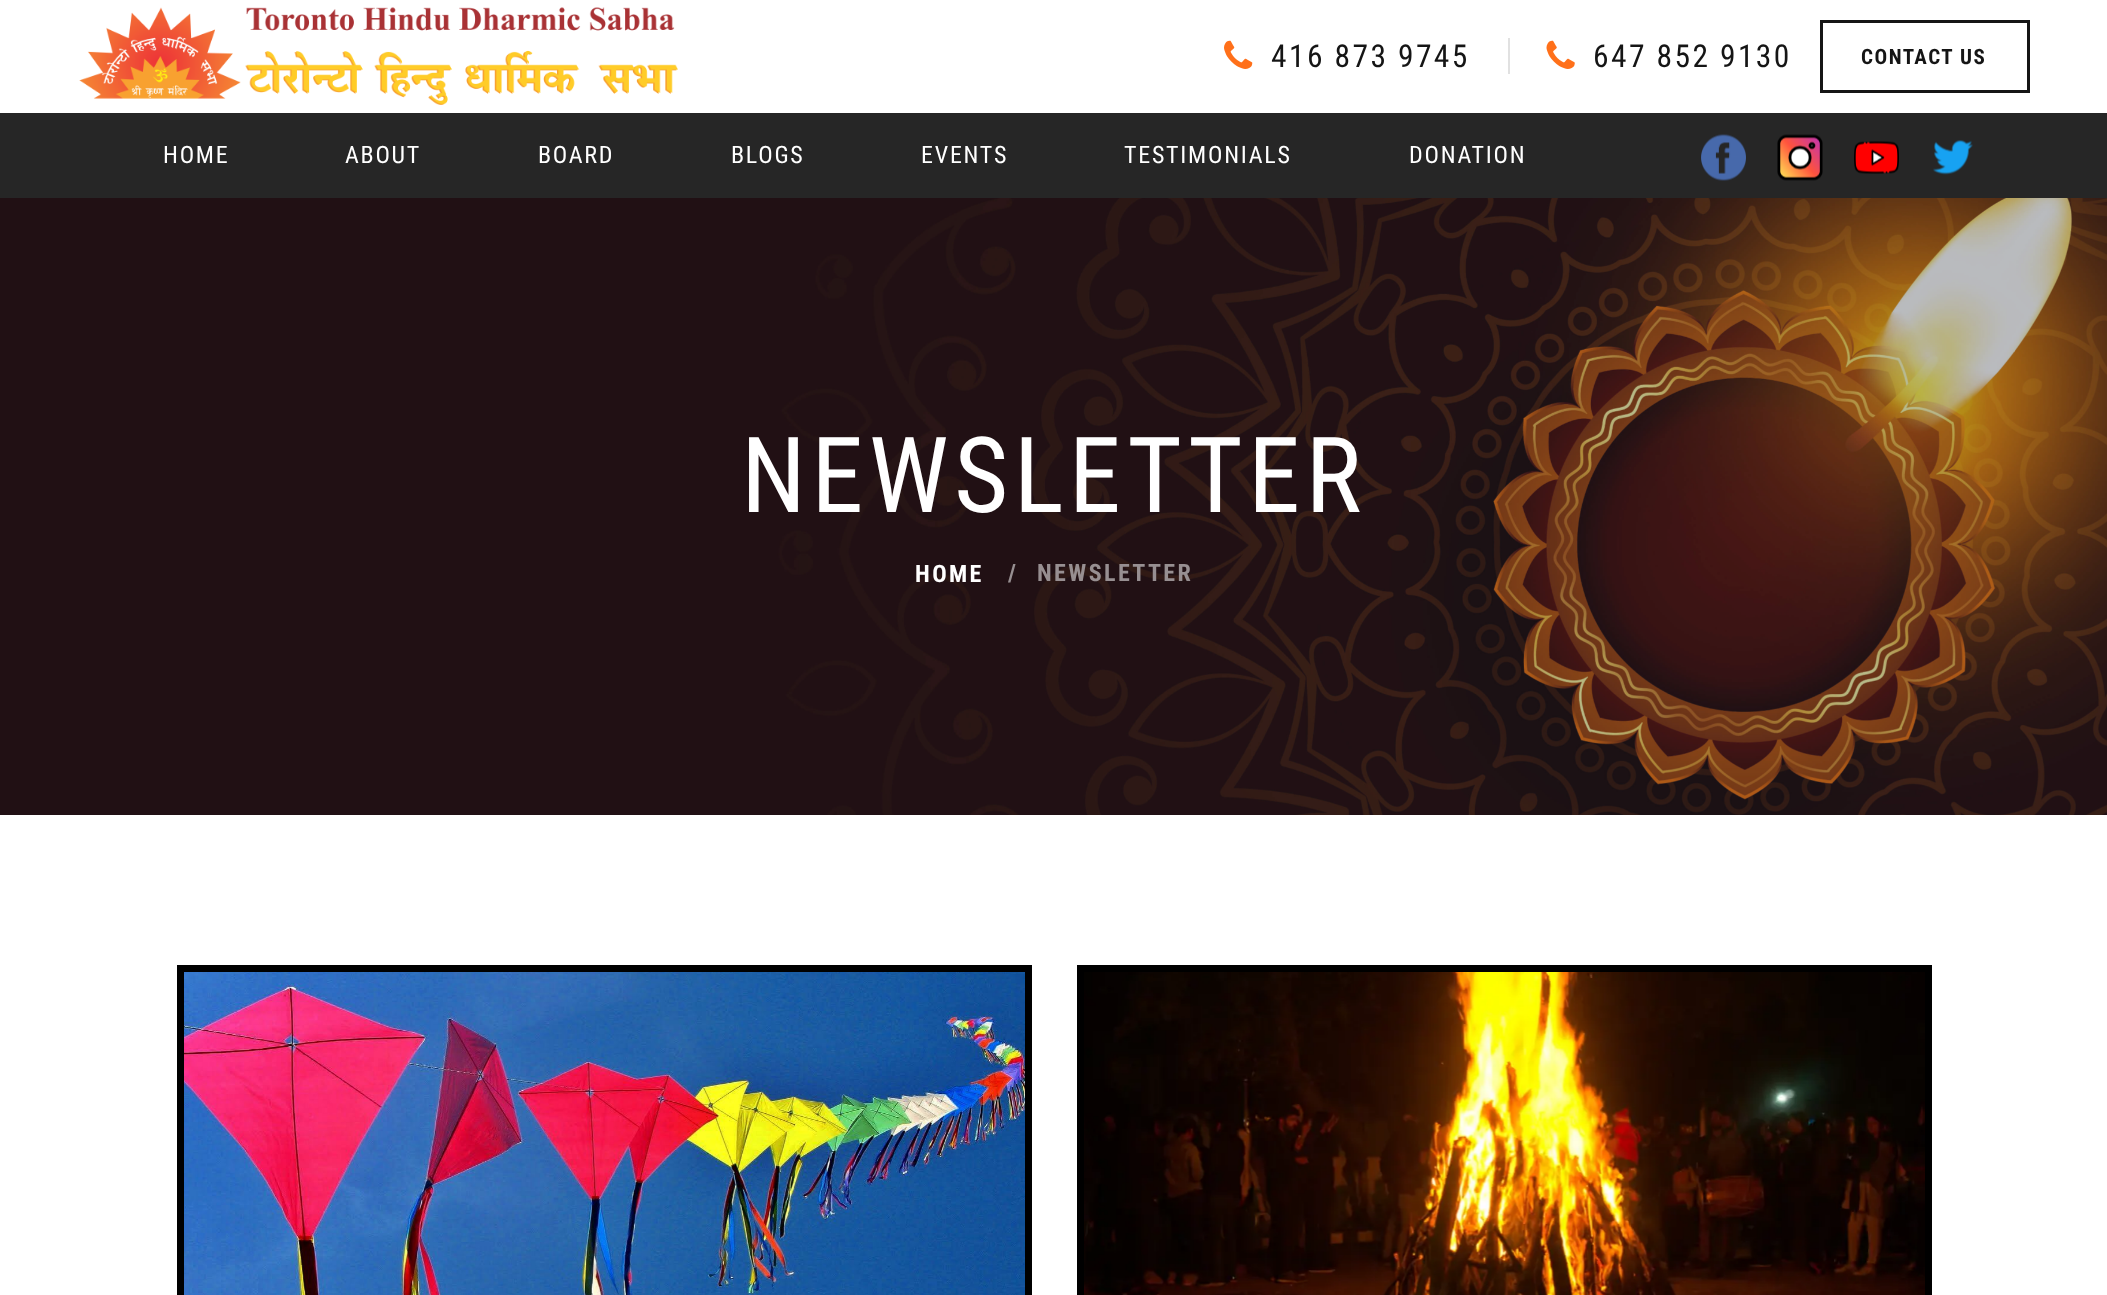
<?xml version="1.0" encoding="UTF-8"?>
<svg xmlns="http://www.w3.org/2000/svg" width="2107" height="1295">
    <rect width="100%" height="100%" fill="#FFFFFF"/>
    <image x="79" y="7" width="599" height="98" href="img_01.png"/>
    <image x="1224" y="40" width="29" height="29" href="img_02.png"/>
    <text x="1271" y="67" font-family="Roboto Condensed" font-size="31.5" letter-spacing="2.4" fill="#151515">416 873 9745</text>
    <rect x="1508" y="38" width="2" height="36" fill="#E1E1E1"/>
    <image x="1546" y="40" width="29" height="29" href="img_03.png"/>
    <text x="1593" y="67" font-family="Roboto Condensed" font-size="31.5" letter-spacing="2.4" fill="#151515">647 852 9130</text>
    <rect x="1821.5" y="21.5" width="207" height="70" fill="none" stroke="#151515" stroke-width="3"/>
    <text x="1861" y="64" font-family="Roboto Condensed" font-size="21" font-weight="700" letter-spacing="1.5" fill="#151515">CONTACT US</text>
    <rect x="0" y="113" width="2107" height="85" fill="#262626"/>
    <text x="163" y="163" font-family="Roboto Condensed" font-size="24" letter-spacing="1.75" fill="#FFFFFF">HOME</text>
    <text x="345" y="163" font-family="Roboto Condensed" font-size="24" letter-spacing="1.75" fill="#FFFFFF">ABOUT</text>
    <text x="538" y="163" font-family="Roboto Condensed" font-size="24" letter-spacing="1.75" fill="#FFFFFF">BOARD</text>
    <text x="731" y="163" font-family="Roboto Condensed" font-size="24" letter-spacing="1.75" fill="#FFFFFF">BLOGS</text>
    <text x="921" y="163" font-family="Roboto Condensed" font-size="24" letter-spacing="1.75" fill="#FFFFFF">EVENTS</text>
    <text x="1124" y="163" font-family="Roboto Condensed" font-size="24" letter-spacing="1.75" fill="#FFFFFF">TESTIMONIALS</text>
    <text x="1409" y="163" font-family="Roboto Condensed" font-size="24" letter-spacing="1.75" fill="#FFFFFF">DONATION</text>
    <image x="1701" y="134" width="45" height="47" href="img_04.png"/>
    <image x="1777" y="134" width="46" height="47" href="img_05.png"/>
    <image x="1854" y="141" width="45" height="33" href="img_06.png"/>
    <image x="1933" y="140" width="40" height="35" href="img_07.png"/>
    <image x="0" y="198" width="2107" height="617" href="img_08.png"/>
    <text x="741" y="512" font-family="Roboto Condensed" font-size="105" letter-spacing="5.25" fill="#FFFFFF">NEWSLETTER</text>
    <text x="915" y="582" font-family="Roboto Condensed" font-size="24" font-weight="700" letter-spacing="2.4" fill="#FFFFFF">HOME</text>
    <text x="1008" y="581" font-family="Roboto Condensed" font-size="24" font-weight="700" letter-spacing="2.4" fill="#978F91">/</text>
    <text x="1037" y="581" font-family="Roboto Condensed" font-size="24" font-weight="700" letter-spacing="2.4" fill="#978F91">NEWSLETTER</text>
    <rect x="181" y="969" width="847" height="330" fill="none" stroke="#000000" stroke-width="8"/>
    <image x="184" y="972" width="841" height="323" href="img_09.png"/>
    <rect x="1081" y="969" width="847" height="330" fill="none" stroke="#000000" stroke-width="8"/>
    <image x="1084" y="972" width="841" height="323" href="img_10.png"/>
</svg>
